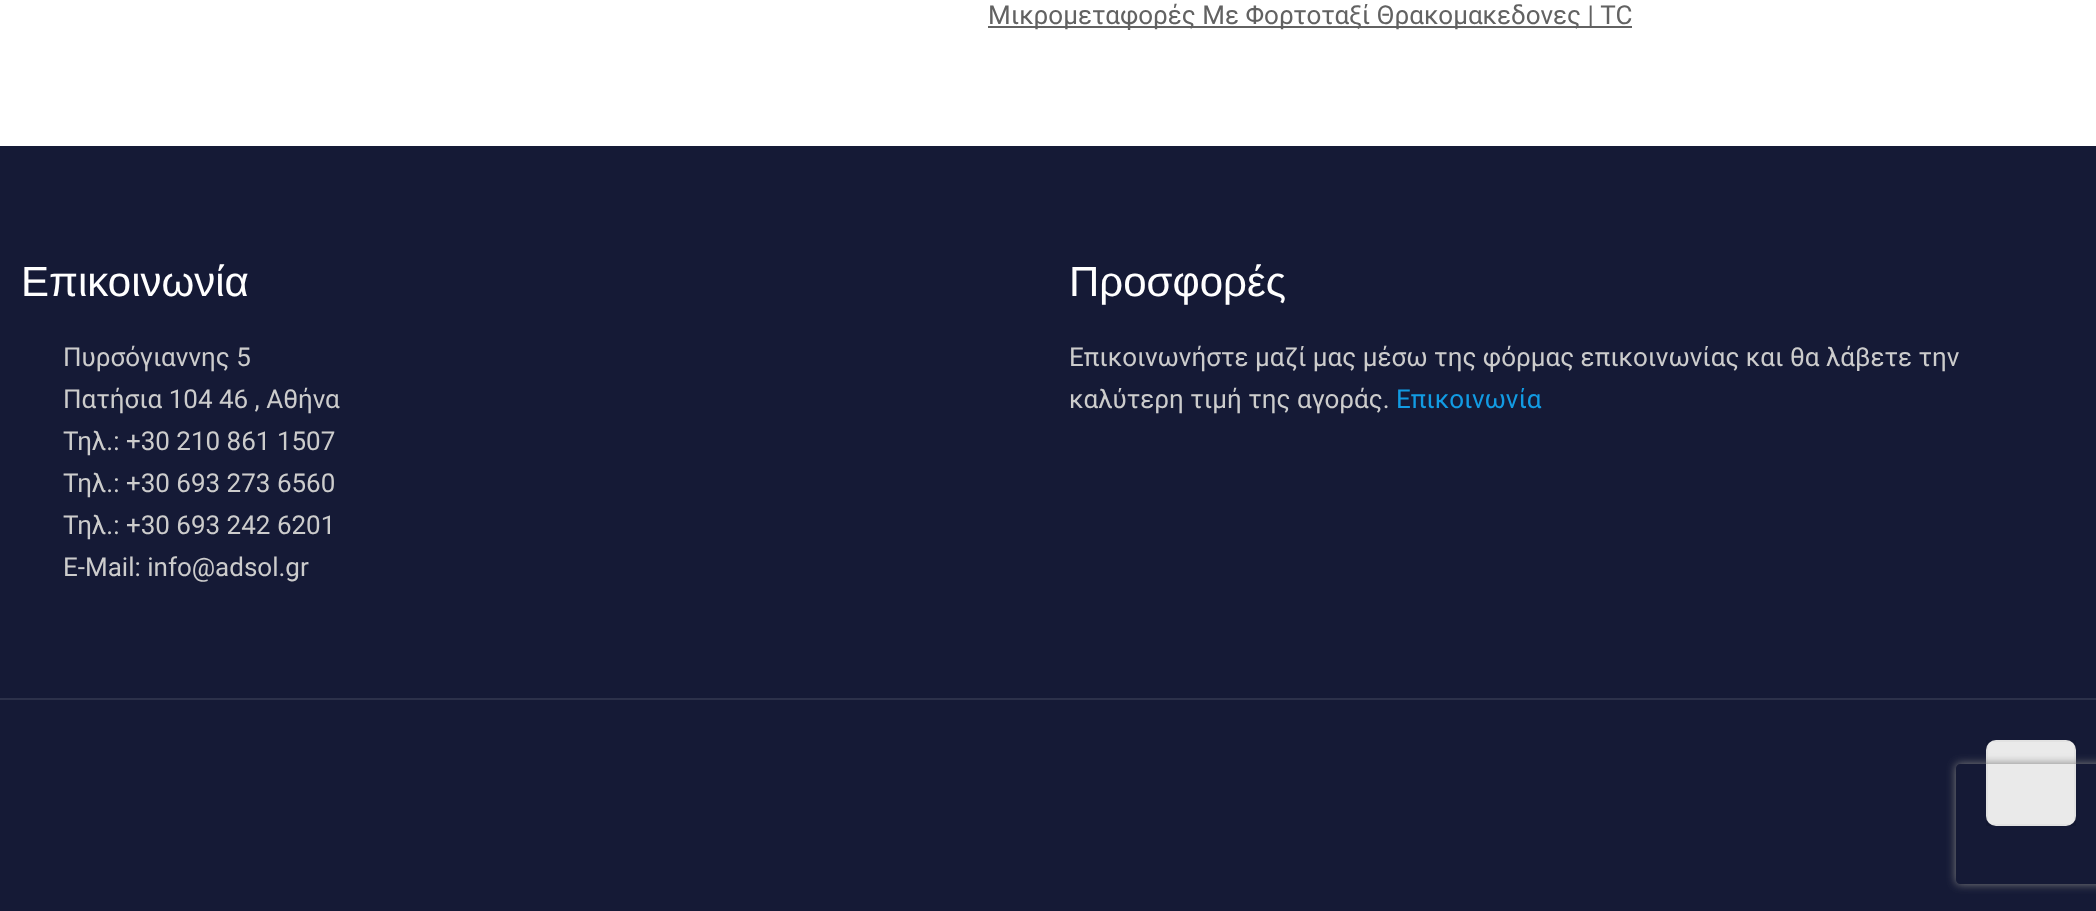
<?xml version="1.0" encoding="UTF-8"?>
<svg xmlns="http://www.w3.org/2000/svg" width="2096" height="911">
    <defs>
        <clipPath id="clip1"><path d="M 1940 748 H 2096 V 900 H 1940 Z M 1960 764 H 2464 C 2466 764 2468 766 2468 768 V 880 C 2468 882 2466 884 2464 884 H 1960 C 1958 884 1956 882 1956 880 V 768 C 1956 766 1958 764 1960 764 Z" clip-rule="evenodd"/></clipPath>
        <filter id="blur1" x="-50%" y="-200%" width="200%" height="500%"><feGaussianBlur stdDeviation="5"/></filter>
    </defs>
    <rect width="100%" height="100%" fill="#FFFFFF"/>
    <rect x="988" y="26" width="644" height="2" fill="#626262"/>
    <text x="988" y="24" font-family="Roboto" font-size="26" fill="#626262">Μικρομεταφορές Με Φορτοταξί Θρακομακεδονες | TC</text>
    <rect x="0" y="146" width="2096" height="765" fill="#151A36"/>
    <text x="21" y="296" font-family="Liberation Sans" font-size="42" fill="#FFFFFF">Επικοινωνία</text>
    <text font-family="Roboto" font-size="26" fill="#CCCCCC">
        <tspan x="63" y="366">Πυρσόγιαννης 5</tspan>
        <tspan x="63" y="408">Πατήσια 104 46 , Αθήνα</tspan>
        <tspan x="63" y="450">Τηλ.: +30 210 861 1507</tspan>
        <tspan x="63" y="492">Τηλ.: +30 693 273 6560</tspan>
        <tspan x="63" y="534">Τηλ.: +30 693 242 6201</tspan>
        <tspan x="63" y="576">E-Mail: info@adsol.gr</tspan>
    </text>
    <text x="1069" y="296" font-family="Liberation Sans" font-size="42" fill="#FFFFFF">Προσφορές</text>
    <text font-family="Roboto" font-size="26" fill="#CCCCCC">
        <tspan x="1069" y="366">Επικοινωνήστε μαζί μας μέσω της φόρμας επικοινωνίας και θα λάβετε την</tspan>
        <tspan x="1069" y="408">καλύτερη τιμή της αγοράς.</tspan>
    </text>
    <text x="1396" y="408" font-family="Roboto" font-size="26" fill="#129BE3">Επικοινωνία</text>
    <rect x="0" y="698" width="2096" height="2" fill="#2C314A"/>
    <rect x="1986" y="740" width="90" height="86" rx="10" fill="#F7F7F7"/>
    <rect x="1987" y="741" width="88" height="84" fill="none" stroke="#000000" stroke-opacity="0.03" stroke-width="2"/>
    <rect x="1986" y="740" width="90" height="86" fill="#000000" fill-opacity="0.05"/>
    <g clip-path="url(#clip1)">
        <rect x="1956" y="764" width="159" height="120" rx="4" fill="#808080" filter="url(#blur1)"/>
    </g>
</svg>
